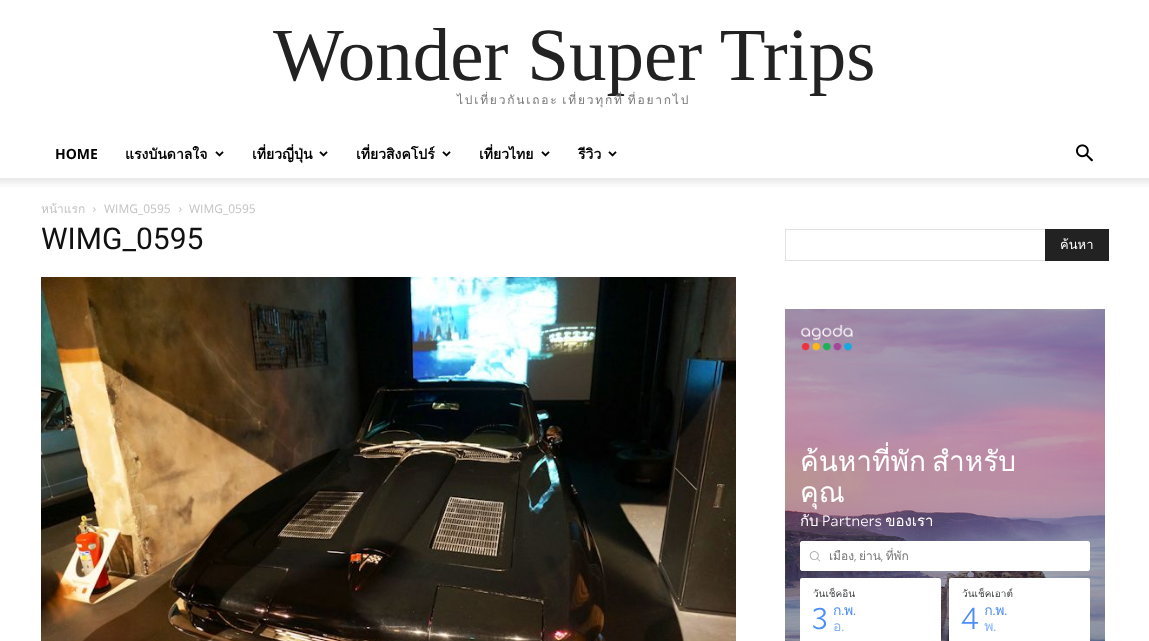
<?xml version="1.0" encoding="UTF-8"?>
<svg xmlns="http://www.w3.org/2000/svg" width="1149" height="641">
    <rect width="100%" height="100%" fill="#FFFFFF"/>
    <text x="273" y="80" font-family="Liberation Serif" font-size="75" fill="#222222">Wonder Super Trips</text>
    <text x="457" y="104" word-spacing="-2" font-family="Loma" font-size="12" letter-spacing="1.8" fill="#777777">ไปเที่ยวกันเถอะ เที่ยวทุกที่ ที่อยากไป</text>
    <text x="55" y="159" font-family="Open Sans" font-size="14" font-weight="700" fill="#000000">HOME</text>
    <text x="125" y="159" font-family="Loma" font-size="14" font-weight="700" fill="#000000">แรงบันดาลใจ</text>
    <image x="215" y="151" width="9" height="6" href="img_01.png"/>
    <text x="252" y="159" font-family="Loma" font-size="14" font-weight="700" fill="#000000">เที่ยวญี่ปุ่น</text>
    <image x="319" y="151" width="9" height="6" href="img_01.png"/>
    <text x="356" y="159" font-family="Loma" font-size="14" font-weight="700" fill="#000000">เที่ยวสิงคโปร์</text>
    <image x="442" y="151" width="9" height="6" href="img_01.png"/>
    <text x="479" y="159" font-family="Loma" font-size="14" font-weight="700" fill="#000000">เที่ยวไทย</text>
    <image x="541" y="151" width="9" height="6" href="img_01.png"/>
    <text x="578" y="159" font-family="Loma" font-size="14" font-weight="700" fill="#000000">รีวิว</text>
    <image x="608" y="151" width="9" height="6" href="img_01.png"/>
    <image x="1076" y="144" width="17" height="18" href="img_02.png"/>
    <image x="0" y="178" width="1149" height="9" href="img_03.png"/>
    <text x="41" y="213" font-family="Loma" font-size="12" fill="#C3C3C3">หน้าแรก</text>
    <image x="93" y="207" width="3" height="5" href="img_04.png"/>
    <text x="104" y="213" font-family="Open Sans" font-size="12" fill="#C3C3C3">WIMG_0595</text>
    <image x="179" y="207" width="3" height="5" href="img_04.png"/>
    <text x="189" y="213" font-family="Open Sans" font-size="12" fill="#C3C3C3">WIMG_0595</text>
    <text x="41" y="249" font-family="Roboto" font-size="30" fill="#111111">WIMG_0595</text>
    <image x="41" y="277" width="695" height="364" href="img_05.png"/>
    <rect x="785" y="229" width="260" height="1" fill="#E1E1E1"/>
    <rect x="785" y="260" width="260" height="1" fill="#E1E1E1"/>
    <rect x="785" y="229" width="1" height="32" fill="#E1E1E1"/>
    <rect x="1045" y="229" width="64" height="32" fill="#222222"/>
    <text x="1060" y="249" font-family="Loma" font-size="13" fill="#FFFFFF">ค้นหา</text>
    <image x="785" y="309" width="320" height="332" href="img_06.png"/>
</svg>
